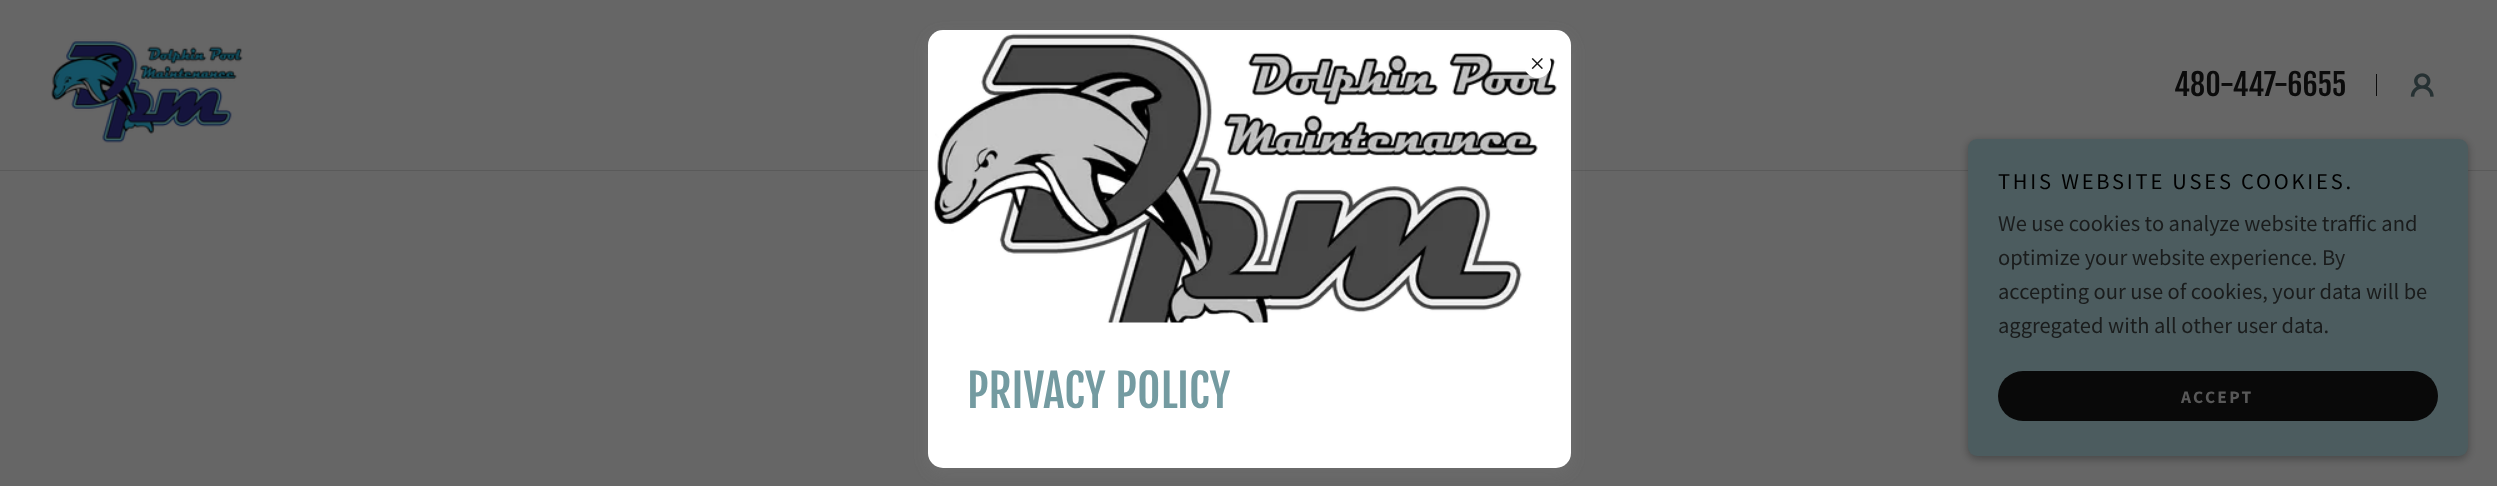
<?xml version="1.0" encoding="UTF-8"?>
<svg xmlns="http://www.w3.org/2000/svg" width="2497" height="486">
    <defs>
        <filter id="blur1" x="-50%" y="-200%" width="200%" height="500%"><feGaussianBlur stdDeviation="7.5"/></filter>
        <filter id="blur2" x="-50%" y="-200%" width="200%" height="500%"><feGaussianBlur stdDeviation="4"/></filter>
    </defs>
    <rect width="100%" height="100%" fill="#666666"/>
    <image x="51" y="39" width="192" height="104" href="img_01.png"/>
    <text x="2174" y="96" font-family="Fjalla One" font-size="30" fill="#0B0B0B">480-447-6655</text>
    <rect x="2376" y="74" width="1" height="22" fill="#0B0B0B"/>
    <image x="2410" y="73" width="24" height="24" href="img_02.png"/>
    <rect x="0" y="170" width="2497" height="1" fill="#5A5A5A"/>
    <rect x="928" y="35" width="643" height="438" rx="15" fill="#757575" fill-opacity="0.4" filter="url(#blur1)"/>
    <rect x="928" y="30" width="643" height="438" rx="15" fill="#FFFFFF"/>
    <image x="933" y="33" width="624" height="290" href="img_04.png"/>
    <rect x="1524" y="50" width="27" height="28" rx="13.5" fill="#FFFFFF"/>
    <image x="1531" y="58" width="12" height="12" href="img_03.png"/>
    <text x="967" y="408" font-family="Fjalla One" font-size="45" fill="#749BA1">PRIVACY POLICY</text>
    <rect x="1968" y="141" width="500" height="318" rx="9" fill="#000000" fill-opacity="0.3" filter="url(#blur2)"/>
    <rect x="1968" y="139" width="500" height="317" rx="9" fill="#4C5C5F"/>
    <text x="1998" y="189" font-family="Source Sans Pro" font-size="22.5" letter-spacing="2.8" fill="#000000">THIS WEBSITE USES COOKIES.</text>
    <text font-family="Source Sans Pro" font-size="22.5" fill="#1A1C1C">
        <tspan x="1998" y="231">We use cookies to analyze website traffic and</tspan>
        <tspan x="1998" y="265">optimize your website experience. By</tspan>
        <tspan x="1998" y="299">accepting our use of cookies, your data will be</tspan>
        <tspan x="1998" y="333">aggregated with all other user data.</tspan>
    </text>
    <rect x="1998" y="371" width="440" height="50" rx="25" fill="#090909"/>
    <text x="2181" y="403" font-family="Source Sans Pro" font-size="17.5" font-weight="700" letter-spacing="2.25" fill="#585858">ACCEPT</text>
</svg>
